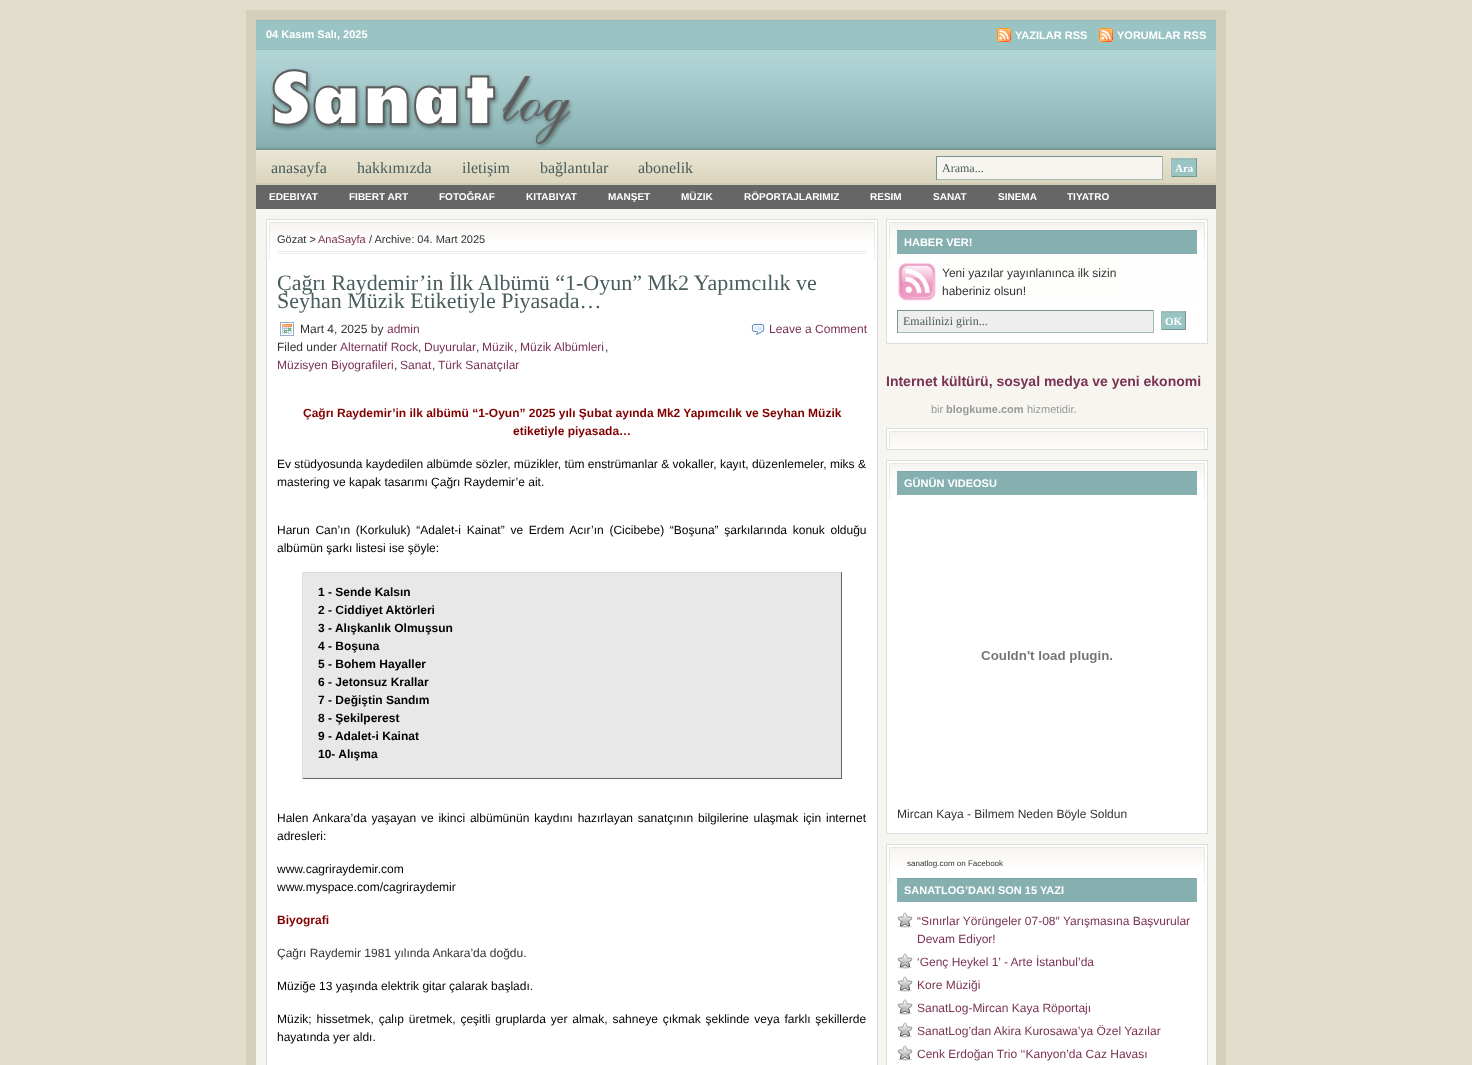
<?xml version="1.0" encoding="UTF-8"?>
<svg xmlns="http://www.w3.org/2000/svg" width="1472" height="1065">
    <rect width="100%" height="100%" fill="#E2DDCB"/>
    <rect x="256" y="209" width="960" height="856" fill="#F7F5EF"/>
    <rect x="251" y="15" width="970" height="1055" fill="none" stroke="#D4CFBB" stroke-width="10"/>
    <rect x="256" y="20" width="960" height="30" fill="#93BBBC"/>
    <rect x="256" y="21" width="960" height="28" fill="#9AC3C4"/>
    <text x="266" y="38" font-family="Liberation Sans" font-size="11" font-weight="700" fill="#FFFFFF">04 Kasım Salı, 2025</text>
    <image x="997" y="28" width="14" height="14" href="img_01.png"/>
    <text x="1015" y="39" font-family="Liberation Sans" font-size="11" font-weight="700" fill="#FFFFFF">YAZILAR RSS</text>
    <image x="1099" y="28" width="14" height="14" href="img_01.png"/>
    <text x="1117" y="39" font-family="Liberation Sans" font-size="11" font-weight="700" fill="#FFFFFF">YORUMLAR RSS</text>
    <image x="256" y="50" width="960" height="100" href="img_02.png"/>
    <image x="271" y="68" width="302" height="80" href="img_03.png"/>
    <image x="256" y="150" width="960" height="35" href="img_04.png"/>
    <text x="271" y="173" font-family="Liberation Serif" font-size="16" fill="#495D5C">anasayfa</text>
    <text x="357" y="173" font-family="Liberation Serif" font-size="16" fill="#495D5C">hakkımızda</text>
    <text x="462" y="173" font-family="Liberation Serif" font-size="16" fill="#495D5C">iletişim</text>
    <text x="540" y="173" font-family="Liberation Serif" font-size="16" fill="#495D5C">bağlantılar</text>
    <text x="638" y="173" font-family="Liberation Serif" font-size="16" fill="#495D5C">abonelik</text>
    <rect x="937" y="157" width="225" height="22" fill="#F7F5EF"/>
    <rect x="936" y="156" width="227" height="1" fill="#759697"/>
    <rect x="1162" y="156" width="1" height="24" fill="#A3BAB9"/>
    <rect x="936" y="179" width="227" height="1" fill="#A3BAB9"/>
    <rect x="936" y="156" width="1" height="24" fill="#759697"/>
    <text x="942" y="172" font-family="Liberation Serif" font-size="12" fill="#495D5C">Arama...</text>
    <rect x="1172" y="159" width="24" height="1" fill="#93BBBC"/>
    <rect x="1172" y="160" width="24" height="16" fill="#9AC3C4"/>
    <rect x="1171" y="158" width="26" height="1" fill="#A3BAB9"/>
    <rect x="1196" y="158" width="1" height="19" fill="#759697"/>
    <rect x="1171" y="176" width="26" height="1" fill="#759697"/>
    <rect x="1171" y="158" width="1" height="19" fill="#A3BAB9"/>
    <text x="1175" y="172" font-family="Liberation Serif" font-size="11" font-weight="700" fill="#FFFFFF">Ara</text>
    <rect x="256" y="185" width="960" height="24" fill="#666666"/>
    <text x="269" y="200" font-family="Liberation Sans" font-size="10" font-weight="700" fill="#FFFFFF">EDEBIYAT</text>
    <text x="349" y="200" font-family="Liberation Sans" font-size="10" font-weight="700" fill="#FFFFFF">FIBERT ART</text>
    <text x="439" y="200" font-family="Liberation Sans" font-size="10" font-weight="700" fill="#FFFFFF">FOTOĞRAF</text>
    <text x="526" y="200" font-family="Liberation Sans" font-size="10" font-weight="700" fill="#FFFFFF">KITABIYAT</text>
    <text x="608" y="200" font-family="Liberation Sans" font-size="10" font-weight="700" fill="#FFFFFF">MANŞET</text>
    <text x="681" y="200" font-family="Liberation Sans" font-size="10" font-weight="700" fill="#FFFFFF">MÜZIK</text>
    <text x="744" y="200" font-family="Liberation Sans" font-size="10" font-weight="700" fill="#FFFFFF">RÖPORTAJLARIMIZ</text>
    <text x="870" y="200" font-family="Liberation Sans" font-size="10" font-weight="700" fill="#FFFFFF">RESIM</text>
    <text x="933" y="200" font-family="Liberation Sans" font-size="10" font-weight="700" fill="#FFFFFF">SANAT</text>
    <text x="998" y="200" font-family="Liberation Sans" font-size="10" font-weight="700" fill="#FFFFFF">SINEMA</text>
    <text x="1067" y="200" font-family="Liberation Sans" font-size="10" font-weight="700" fill="#FFFFFF">TIYATRO</text>
    <rect x="267" y="220" width="610" height="845" fill="#FFFFFF"/>
    <image x="269" y="222" width="606" height="38" href="img_05.png"/>
    <rect x="266.5" y="219.5" width="611" height="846" fill="none" stroke="#DDDDDD"/>
    <rect x="277" y="251" width="590" height="1" fill="#EAEAEA"/>
    <rect x="277" y="253" width="590" height="1" fill="#EAEAEA"/>
    <text x="277" y="243" font-family="Liberation Sans" font-size="11" fill="#333333">Gözat &gt;</text>
    <text x="318" y="243" font-family="Liberation Sans" font-size="11" fill="#7A3254">AnaSayfa</text>
    <text x="369" y="243" font-family="Liberation Sans" font-size="11" fill="#333333">/ Archive: 04. Mart 2025</text>
    <text font-family="Liberation Serif" font-size="22" fill="#495D5C">
        <tspan x="277" y="290">Çağrı Raydemir’in İlk Albümü “1-Oyun” Mk2 Yapımcılık ve</tspan>
        <tspan x="277" y="308">Seyhan Müzik Etiketiyle Piyasada…</tspan>
    </text>
    <image x="280" y="322" width="14" height="14" href="img_06.png"/>
    <text x="300" y="333" font-family="Liberation Sans" font-size="12" fill="#333333">Mart 4, 2025 by</text>
    <text x="387" y="333" font-family="Liberation Sans" font-size="12" fill="#7A3254">admin</text>
    <text x="277" y="351" font-family="Liberation Sans" font-size="12" fill="#333333">Filed under</text>
    <text x="340" y="351" font-family="Liberation Sans" font-size="12" fill="#7A3254">Alternatif Rock</text>
    <text x="418" y="351" font-family="Liberation Sans" font-size="12" fill="#333333">,</text>
    <text x="424" y="351" font-family="Liberation Sans" font-size="12" fill="#7A3254">Duyurular</text>
    <text x="476" y="351" font-family="Liberation Sans" font-size="12" fill="#333333">,</text>
    <text x="482" y="351" font-family="Liberation Sans" font-size="12" fill="#7A3254">Müzik</text>
    <text x="514" y="351" font-family="Liberation Sans" font-size="12" fill="#333333">,</text>
    <text x="520" y="351" font-family="Liberation Sans" font-size="12" fill="#7A3254">Müzik Albümleri</text>
    <text x="605" y="351" font-family="Liberation Sans" font-size="12" fill="#333333">,</text>
    <text x="277" y="369" font-family="Liberation Sans" font-size="12" fill="#7A3254">Müzisyen Biyografileri</text>
    <text x="394" y="369" font-family="Liberation Sans" font-size="12" fill="#333333">,</text>
    <text x="400" y="369" font-family="Liberation Sans" font-size="12" fill="#7A3254">Sanat</text>
    <text x="432" y="369" font-family="Liberation Sans" font-size="12" fill="#333333">,</text>
    <text x="438" y="369" font-family="Liberation Sans" font-size="12" fill="#7A3254">Türk Sanatçılar</text>
    <image x="751" y="324" width="14" height="11" href="img_07.png"/>
    <text x="769" y="333" font-family="Liberation Sans" font-size="12" fill="#7A3254">Leave a Comment</text>
    <text x="303" y="417" font-family="Liberation Sans" font-size="12" font-weight="700" fill="#800000">Çağrı Raydemir’in ilk albümü “1-Oyun” 2025 yılı Şubat ayında Mk2 Yapımcılık ve Seyhan Müzik</text>
    <text x="513" y="435" font-family="Liberation Sans" font-size="12" font-weight="700" fill="#800000">etiketiyle piyasada…</text>
    <text font-family="Liberation Sans" font-size="12" fill="#000000">
        <tspan x="277" y="468">Ev stüdyosunda kaydedilen albümde sözler, müzikler, tüm enstrümanlar &amp; vokaller, kayıt, düzenlemeler, miks &amp;</tspan>
        <tspan x="277" y="486">mastering ve kapak tasarımı Çağrı Raydemir’e ait.</tspan>
    </text>
    <text font-family="Liberation Sans" font-size="12" fill="#000000">
        <tspan x="277" y="534" word-spacing="2.4">Harun Can’ın (Korkuluk) “Adalet-i Kainat” ve Erdem Acır’ın (Cicibebe) “Boşuna” şarkılarında konuk olduğu</tspan>
        <tspan x="277" y="552">albümün şarkı listesi ise şöyle:</tspan>
    </text>
    <rect x="303" y="573" width="538" height="205" fill="#E8E8E8"/>
    <rect x="302" y="572" width="540" height="1" fill="#DDDDDD"/>
    <rect x="841" y="572" width="1" height="207" fill="#666666"/>
    <rect x="302" y="778" width="540" height="1" fill="#666666"/>
    <rect x="302" y="572" width="1" height="207" fill="#DDDDDD"/>
    <text font-family="Liberation Sans" font-size="12" font-weight="700" fill="#000000">
        <tspan x="318" y="596">1 - Sende Kalsın</tspan>
        <tspan x="318" y="614">2 - Ciddiyet Aktörleri</tspan>
        <tspan x="318" y="632">3 - Alışkanlık Olmuşsun</tspan>
        <tspan x="318" y="650">4 - Boşuna</tspan>
        <tspan x="318" y="668">5 - Bohem Hayaller</tspan>
        <tspan x="318" y="686">6 - Jetonsuz Krallar</tspan>
        <tspan x="318" y="704">7 - Değiştin Sandım</tspan>
        <tspan x="318" y="722">8 - Şekilperest</tspan>
        <tspan x="318" y="740">9 - Adalet-i Kainat</tspan>
        <tspan x="318" y="758">10- Alışma</tspan>
    </text>
    <text font-family="Liberation Sans" font-size="12" fill="#000000">
        <tspan x="277" y="822" word-spacing="1.5">Halen Ankara’da yaşayan ve ikinci albümünün kaydını hazırlayan sanatçının bilgilerine ulaşmak için internet</tspan>
        <tspan x="277" y="840">adresleri:</tspan>
    </text>
    <text font-family="Liberation Sans" font-size="12" fill="#000000">
        <tspan x="277" y="873">www.cagriraydemir.com</tspan>
        <tspan x="277" y="891">www.myspace.com/cagriraydemir</tspan>
    </text>
    <text x="277" y="924" font-family="Liberation Sans" font-size="12" font-weight="700" fill="#800000">Biyografi</text>
    <text x="277" y="957" font-family="Liberation Sans" font-size="12" fill="#333333">Çağrı Raydemir 1981 yılında Ankara’da doğdu.</text>
    <text x="277" y="990" font-family="Liberation Sans" font-size="12" fill="#000000">Müziğe 13 yaşında elektrik gitar çalarak başladı.</text>
    <text font-family="Liberation Sans" font-size="12" fill="#000000">
        <tspan x="277" y="1023" word-spacing="1.5">Müzik; hissetmek, çalıp üretmek, çeşitli gruplarda yer almak, sahneye çıkmak şeklinde veya farklı şekillerde</tspan>
        <tspan x="277" y="1041">hayatında yer aldı.</tspan>
    </text>
    <rect x="887" y="220" width="320" height="123" fill="#FFFFFF"/>
    <image x="889" y="222" width="316" height="79" href="img_08.png"/>
    <rect x="886.5" y="219.5" width="321" height="124" fill="none" stroke="#DDDDDD"/>
    <rect x="897" y="231" width="300" height="23" fill="#86AFB0"/>
    <rect x="897" y="230" width="300" height="1" fill="#7FA7A8"/>
    <text x="904" y="246" font-family="Liberation Sans" font-size="11" font-weight="700" fill="#FFFFFF">HABER VER!</text>
    <text font-family="Liberation Sans" font-size="12" fill="#333333">
        <tspan x="942" y="277">Yeni yazılar yayınlanınca ilk sizin</tspan>
        <tspan x="942" y="295">haberiniz olsun!</tspan>
    </text>
    <rect x="898" y="311" width="255" height="21" fill="#EEEEEE"/>
    <rect x="897" y="310" width="257" height="1" fill="#759697"/>
    <rect x="1153" y="310" width="1" height="23" fill="#A3BAB9"/>
    <rect x="897" y="332" width="257" height="1" fill="#A3BAB9"/>
    <rect x="897" y="310" width="1" height="23" fill="#759697"/>
    <text x="903" y="325" font-family="Liberation Serif" font-size="12" fill="#495D5C">Emailinizi girin...</text>
    <rect x="1162" y="312" width="23" height="1" fill="#93BBBC"/>
    <rect x="1162" y="313" width="23" height="16" fill="#9AC3C4"/>
    <rect x="1161" y="311" width="25" height="1" fill="#A3BAB9"/>
    <rect x="1185" y="311" width="1" height="19" fill="#759697"/>
    <rect x="1161" y="329" width="25" height="1" fill="#759697"/>
    <rect x="1161" y="311" width="1" height="19" fill="#A3BAB9"/>
    <text x="1165" y="325" font-family="Liberation Serif" font-size="11" font-weight="700" fill="#FFFFFF">OK</text>
    <text x="886" y="386" font-family="Liberation Sans" font-size="14" font-weight="700" fill="#7A3254">Internet kültürü, sosyal medya ve yeni ekonomi</text>
    <text x="931" y="413" font-family="Liberation Sans" font-size="11" fill="#999999">bir</text>
    <text x="946" y="413" font-family="Liberation Sans" font-size="11" font-weight="700" fill="#999999">blogkume.com</text>
    <text x="1027" y="413" font-family="Liberation Sans" font-size="11" fill="#999999">hizmetidir.</text>
    <rect x="887" y="429" width="320" height="20" fill="#FFFFFF"/>
    <image x="889" y="431" width="316" height="18" href="img_09.png"/>
    <rect x="886.5" y="428.5" width="321" height="21" fill="none" stroke="#DDDDDD"/>
    <rect x="887" y="461" width="320" height="372" fill="#FFFFFF"/>
    <image x="889" y="463" width="316" height="38" href="img_10.png"/>
    <rect x="886.5" y="460.5" width="321" height="373" fill="none" stroke="#DDDDDD"/>
    <rect x="897" y="472" width="300" height="23" fill="#86AFB0"/>
    <rect x="897" y="471" width="300" height="1" fill="#7FA7A8"/>
    <text x="904" y="487" font-family="Liberation Sans" font-size="11" font-weight="700" fill="#FFFFFF">GÜNÜN VIDEOSU</text>
    <image x="981" y="651" width="131" height="12" href="img_11.png"/>
    <text x="897" y="818" font-family="Liberation Sans" font-size="12" fill="#333333">Mircan Kaya - Bilmem Neden Böyle Soldun</text>
    <rect x="887" y="845" width="320" height="220" fill="#FFFFFF"/>
    <image x="889" y="847" width="316" height="38" href="img_10.png"/>
    <rect x="886.5" y="844.5" width="321" height="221" fill="none" stroke="#DDDDDD"/>
    <text x="907" y="866" font-family="Liberation Sans" font-size="8" fill="#333333">sanatlog.com on Facebook</text>
    <rect x="897" y="879" width="300" height="23" fill="#86AFB0"/>
    <rect x="897" y="878" width="300" height="1" fill="#7FA7A8"/>
    <text x="904" y="894" font-family="Liberation Sans" font-size="11" font-weight="700" fill="#FFFFFF">SANATLOG’DAKI SON 15 YAZI</text>
    <image x="897" y="912" width="16" height="16" href="img_12.png"/>
    <text font-family="Liberation Sans" font-size="12" fill="#7A3254">
        <tspan x="917" y="925">“Sınırlar Yörüngeler 07-08″ Yarışmasına Başvurular</tspan>
        <tspan x="917" y="943">Devam Ediyor!</tspan>
    </text>
    <image x="897" y="953" width="16" height="16" href="img_12.png"/>
    <text x="917" y="966" font-family="Liberation Sans" font-size="12" fill="#7A3254">‘Genç Heykel 1’ - Arte İstanbul’da</text>
    <image x="897" y="976" width="16" height="16" href="img_12.png"/>
    <text x="917" y="989" font-family="Liberation Sans" font-size="12" fill="#7A3254">Kore Müziği</text>
    <image x="897" y="999" width="16" height="16" href="img_12.png"/>
    <text x="917" y="1012" font-family="Liberation Sans" font-size="12" fill="#7A3254">SanatLog-Mircan Kaya Röportajı</text>
    <image x="897" y="1022" width="16" height="16" href="img_12.png"/>
    <text x="917" y="1035" font-family="Liberation Sans" font-size="12" fill="#7A3254">SanatLog’dan Akira Kurosawa’ya Özel Yazılar</text>
    <image x="897" y="1045" width="16" height="16" href="img_12.png"/>
    <text x="917" y="1058" font-family="Liberation Sans" font-size="12" fill="#7A3254">Cenk Erdoğan Trio ‘‘Kanyon’da Caz Havası</text>
</svg>
